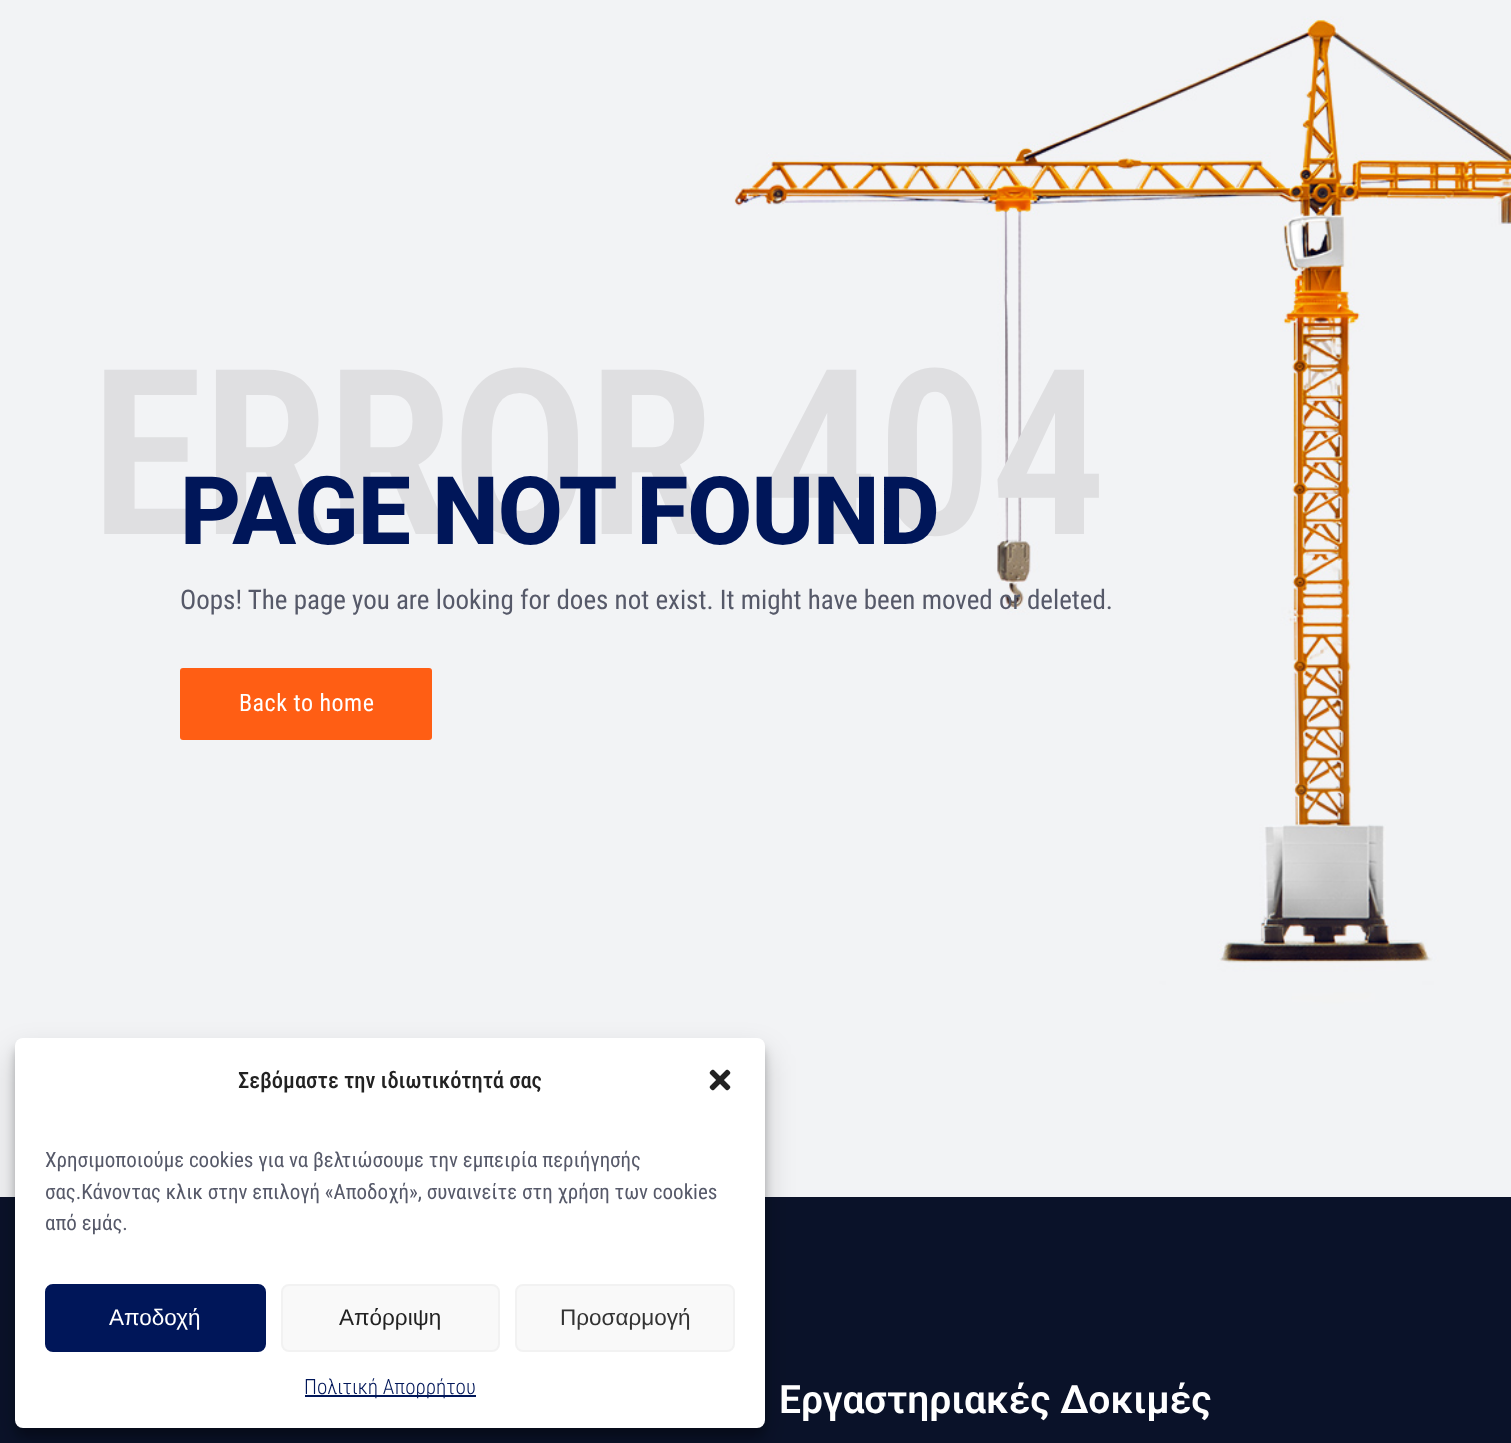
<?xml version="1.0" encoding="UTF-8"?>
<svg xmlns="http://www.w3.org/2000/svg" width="1511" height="1443">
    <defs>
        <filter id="blur1" x="-50%" y="-200%" width="200%" height="500%"><feGaussianBlur stdDeviation="4.5"/></filter>
        <filter id="blur2" x="-50%" y="-200%" width="200%" height="500%"><feGaussianBlur stdDeviation="15"/></filter>
    </defs>
    <rect width="100%" height="100%" fill="#0A1229"/>
    <image x="0" y="0" width="1511" height="1197" href="img_01.png"/>
    <text x="90" y="534" font-family="Roboto Condensed" font-size="231" font-weight="600" letter-spacing="-2.25" fill="#DFDFE1">ERROR 404</text>
    <text x="180" y="544" font-family="Roboto" font-size="94.5" font-weight="800" letter-spacing="-1" fill="#001659">PAGE NOT FOUND</text>
    <text x="180" y="609" font-family="Roboto Condensed" font-size="27" fill="#565969">Oops! The page you are looking for does not exist. It might have been moved or deleted.</text>
    <rect x="180" y="668" width="252" height="72" rx="3" fill="#FF5E14"/>
    <text x="239" y="711" font-family="Roboto Condensed" font-size="24" letter-spacing="0.5" fill="#FFFFFF">Back to home</text>
    <rect x="15" y="1047" width="750" height="390" rx="8" fill="#000000" fill-opacity="0.23" filter="url(#blur1)"/>
    <rect x="15" y="1053" width="750" height="390" rx="8" fill="#000000" fill-opacity="0.19" filter="url(#blur2)"/>
    <rect x="15" y="1038" width="750" height="390" rx="8" fill="#FFFFFF"/>
    <text x="238" y="1088" font-family="Roboto Condensed" font-size="22.5" font-weight="500" fill="#222222">Σεβόμαστε την ιδιωτικότητά σας</text>
    <image x="709" y="1069" width="22" height="22" href="img_02.png"/>
    <text font-family="Roboto Condensed" font-size="21" fill="#565969">
        <tspan x="45" y="1167">Χρησιμοποιούμε cookies για να βελτιώσουμε την εμπειρία περιήγησής</tspan>
        <tspan x="45" y="1199">σας.Κάνοντας κλικ στην επιλογή «Αποδοχή», συναινείτε στη χρήση των cookies</tspan>
        <tspan x="45" y="1230">από εμάς.</tspan>
    </text>
    <rect x="46" y="1285" width="219" height="66" rx="7" fill="#001659" stroke="#001659" stroke-width="2"/>
    <text x="109" y="1325" font-family="Liberation Sans" font-size="22.5" fill="#FFFFFF">Αποδοχή</text>
    <rect x="282" y="1285" width="217" height="66" rx="7" fill="#F9F9F9" stroke="#F2F2F2" stroke-width="2"/>
    <text x="339" y="1325" font-family="Liberation Sans" font-size="22.5" fill="#222222">Απόρριψη</text>
    <rect x="516" y="1285" width="218" height="66" rx="7" fill="#F9F9F9" stroke="#F2F2F2" stroke-width="2"/>
    <text x="560" y="1325" font-family="Liberation Sans" font-size="22.5" fill="#333333">Προσαρμογή</text>
    <rect x="305" y="1395" width="171" height="2" fill="#001659"/>
    <text x="304" y="1394" font-family="Roboto Condensed" font-size="21" font-weight="300" fill="#001659">Πολιτική Απορρήτου</text>
    <text x="779" y="1413" font-family="Roboto" font-size="39" font-weight="600" fill="#FFFFFF">Εργαστηριακές Δοκιμές</text>
</svg>
